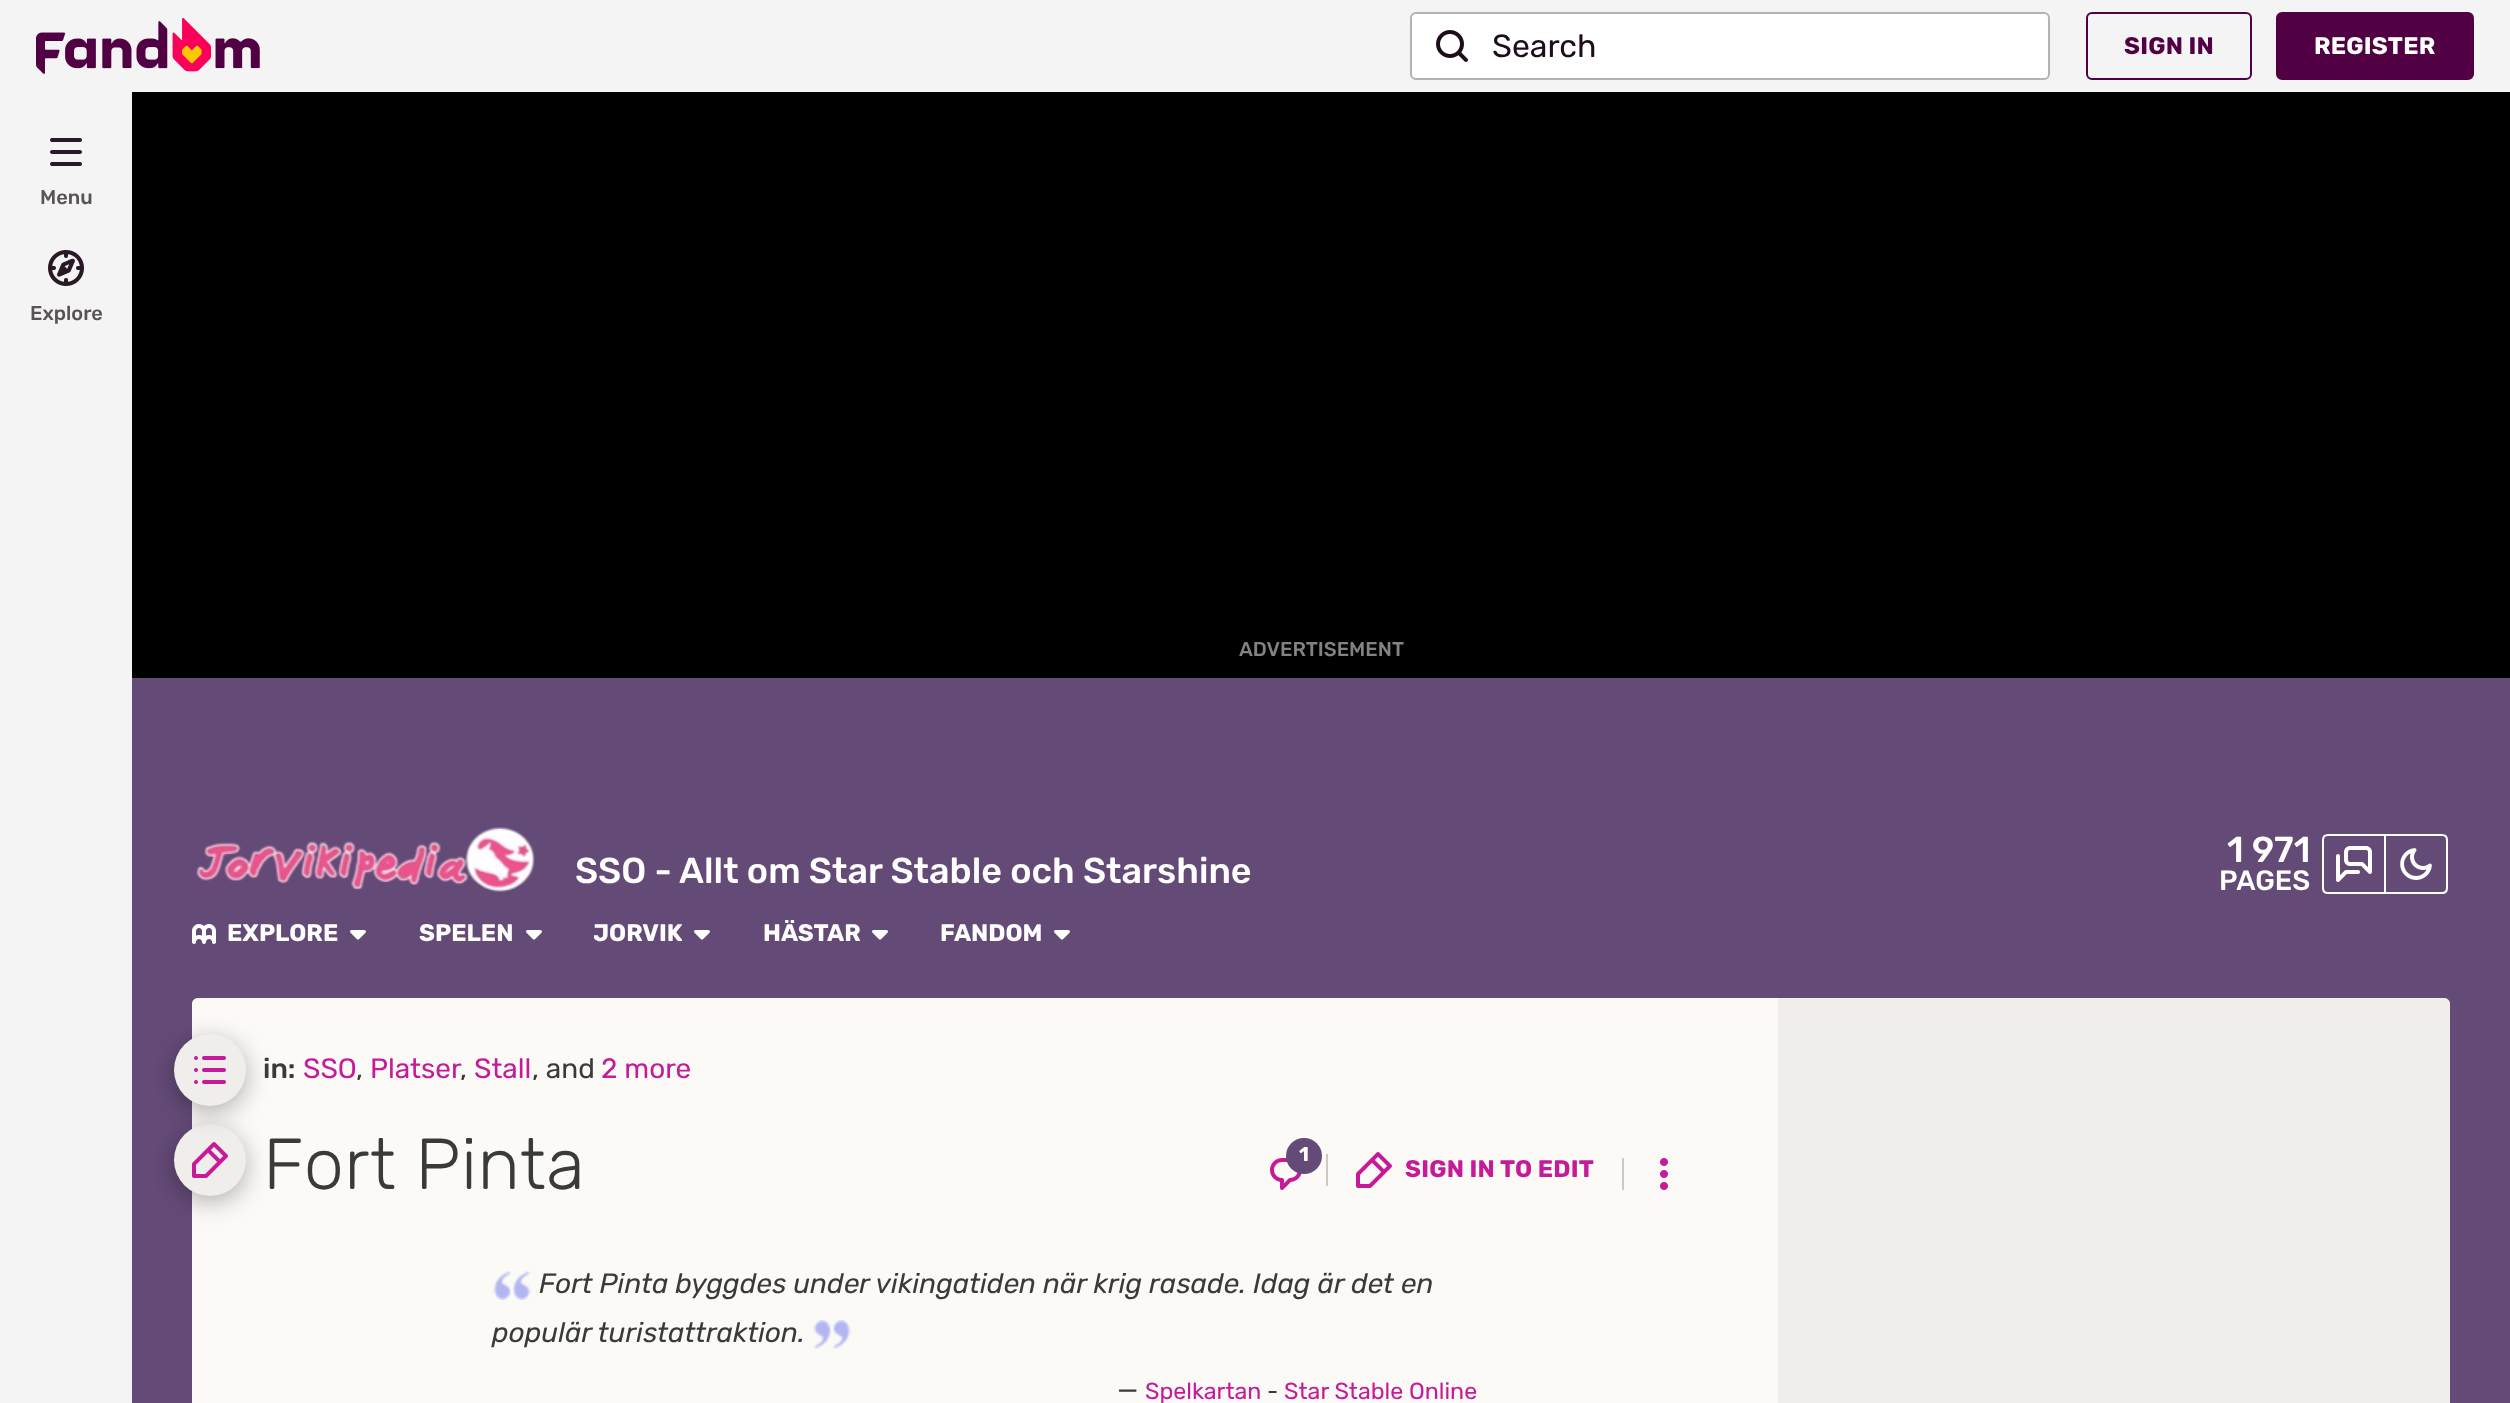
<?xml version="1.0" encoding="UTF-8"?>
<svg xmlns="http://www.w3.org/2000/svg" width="2510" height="1403">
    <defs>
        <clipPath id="clip1"><rect x="594" y="920" width="88" height="30"/></clipPath>
        <clipPath id="clip2"><rect x="762" y="920" width="98" height="30"/></clipPath>
        <filter id="blur1" x="-50%" y="-200%" width="200%" height="500%"><feGaussianBlur stdDeviation="12"/></filter>
    </defs>
    <rect width="100%" height="100%" fill="#644A77"/>
    <rect x="0" y="0" width="2510" height="92" fill="#F4F4F4"/>
    <image x="36" y="18" width="224" height="56" href="img_01.png"/>
    <rect x="1411" y="13" width="638" height="66" rx="5" fill="#FFFFFF" stroke="#B3B3B3" stroke-width="2"/>
    <image x="1436" y="30" width="32" height="32" href="img_02.png"/>
    <text x="1492" y="57" font-family="Rubik" font-size="32" fill="#1E0C1B">Search</text>
    <rect x="2087" y="13" width="164" height="66" rx="5" fill="none" stroke="#520044" stroke-width="2"/>
    <text x="2124" y="54" font-family="Rubik" font-size="24" font-weight="700" letter-spacing="0.25" fill="#520044">SIGN IN</text>
    <rect x="2277" y="13" width="196" height="66" rx="5" fill="#520044" stroke="#520044" stroke-width="2"/>
    <text x="2314" y="54" font-family="Rubik" font-size="24" font-weight="700" letter-spacing="0.25" fill="#FFFFFF">REGISTER</text>
    <rect x="0" y="92" width="132" height="1311" fill="#F4F4F4"/>
    <image x="50" y="138" width="32" height="28" href="img_03.png"/>
    <text x="40" y="204" font-family="Rubik" font-size="20" font-weight="500" fill="#595358">Menu</text>
    <image x="48" y="250" width="36" height="36" href="img_04.png"/>
    <text x="30" y="320" font-family="Rubik" font-size="20" font-weight="500" fill="#595358">Explore</text>
    <rect x="132" y="92" width="2378" height="586" fill="#000000"/>
    <text x="1239" y="656" font-family="Rubik" font-size="20" font-weight="500" fill="#838283">ADVERTISEMENT</text>
    <image x="196" y="827" width="340" height="65" href="img_05.png"/>
    <text x="575" y="883" font-family="Rubik" font-size="36" font-weight="500" fill="#FFFFFF">SSO - Allt om Star Stable och Starshine</text>
    <text x="2227" y="862" font-family="Rubik" font-size="36" font-weight="500" fill="#FFFFFF">1 971</text>
    <text x="2219" y="890" font-family="Rubik" font-size="28" font-weight="500" fill="#FFFFFF">PAGES</text>
    <path d="M 2328 835 H 2385 V 893 H 2328 C 2325 893 2323 891 2323 888 V 840 C 2323 837 2325 835 2328 835 Z" fill="none" stroke="#FFFFFF" stroke-width="2"/>
    <image x="2336" y="846" width="36" height="36" href="img_06.png"/>
    <path d="M 2385 835 H 2442 C 2445 835 2447 837 2447 840 V 888 C 2447 891 2445 893 2442 893 H 2385 Z" fill="none" stroke="#FFFFFF" stroke-width="2"/>
    <image x="2400" y="848" width="32" height="32" href="img_07.png"/>
    <image x="192" y="924" width="24" height="20" href="img_08.png"/>
    <text x="227" y="941" font-family="Rubik" font-size="24" font-weight="700" fill="#FFFFFF">EXPLORE</text>
    <image x="350" y="930" width="16" height="10" href="img_09.png"/>
    <text x="419" y="941" font-family="Rubik" font-size="24" font-weight="700" fill="#FFFFFF">SPELEN</text>
    <image x="526" y="930" width="16" height="10" href="img_09.png"/>
    <g clip-path="url(#clip1)">
        <text x="593" y="941" font-family="Rubik" font-size="24" font-weight="700" fill="#FFFFFF">JORVIK</text>
    </g>
    <image x="694" y="930" width="16" height="10" href="img_09.png"/>
    <g clip-path="url(#clip2)">
        <text x="763" y="941" font-family="Rubik" font-size="24" font-weight="700" fill="#FFFFFF">HÄSTAR</text>
    </g>
    <image x="872" y="930" width="16" height="10" href="img_09.png"/>
    <text x="940" y="941" font-family="Rubik" font-size="24" font-weight="700" fill="#FFFFFF">FANDOM</text>
    <image x="1054" y="930" width="16" height="10" href="img_09.png"/>
    <path d="M 198 998 H 1778 V 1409 H 198 C 194.5 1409 192 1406.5 192 1403 V 1004 C 192 1000.5 194.5 998 198 998 Z" fill="#FCFAF6"/>
    <rect x="174" y="1130" width="72" height="72" rx="36" fill="#000000" fill-opacity="0.3" filter="url(#blur1)"/>
    <circle cx="210" cy="1160" r="36" fill="#EFEEEA"/>
    <image x="192" y="1142" width="36" height="36" href="img_11.png"/>
    <rect x="174" y="1040" width="72" height="72" rx="36" fill="#000000" fill-opacity="0.3" filter="url(#blur1)"/>
    <circle cx="210" cy="1070" r="36" fill="#EFEEEA"/>
    <image x="194" y="1056" width="32" height="28" href="img_10.png"/>
    <text x="263" y="1078" font-family="Rubik" font-size="28" font-weight="500" fill="#3A3A3A">in:</text>
    <text x="303" y="1078" font-family="Rubik" font-size="28" fill="#C51A99">SSO</text>
    <text x="356" y="1078" font-family="Rubik" font-size="28" fill="#3A3A3A">,</text>
    <text x="370" y="1078" font-family="Rubik" font-size="28" fill="#C51A99">Platser</text>
    <text x="460" y="1078" font-family="Rubik" font-size="28" fill="#3A3A3A">,</text>
    <text x="474" y="1078" font-family="Rubik" font-size="28" fill="#C51A99">Stall</text>
    <text x="532" y="1078" font-family="Rubik" font-size="28" fill="#3A3A3A">, and</text>
    <text x="601" y="1078" font-family="Rubik" font-size="28" fill="#C51A99">2 more</text>
    <text x="263" y="1189" font-family="Rubik" font-size="72" font-weight="300" letter-spacing="0.5" fill="#3A3A3A">Fort Pinta</text>
    <image x="1270" y="1158" width="32" height="32" href="img_12.png"/>
    <circle cx="1304" cy="1156" r="18" fill="#644A77"/>
    <text x="1299" y="1161" font-family="Rubik" font-size="20" font-weight="700" letter-spacing="0.25" fill="#FFFFFF">1</text>
    <rect x="1326" y="1154" width="2" height="32" fill="#CCCAC7"/>
    <image x="1356" y="1152" width="36" height="36" href="img_13.png"/>
    <text x="1405" y="1177" font-family="Rubik" font-size="24" font-weight="700" letter-spacing="0.25" fill="#C51A99">SIGN IN TO EDIT</text>
    <rect x="1622" y="1158" width="2" height="32" fill="#CCCAC7"/>
    <image x="1660" y="1158" width="8" height="32" href="img_14.png"/>
    <image x="493" y="1271" width="38" height="29" href="img_15.png"/>
    <text x="539" y="1293" font-family="Rubik" font-size="28" font-style="italic" fill="#3A3A3A">Fort Pinta byggdes under vikingatiden när krig rasade. Idag är det en</text>
    <text x="492" y="1342" font-family="Rubik" font-size="28" font-style="italic" fill="#3A3A3A">populär turistattraktion.</text>
    <image x="813" y="1320" width="38" height="29" href="img_16.png"/>
    <text x="1117" y="1399" font-family="Rubik" font-size="28" fill="#3A3A3A">—</text>
    <text x="1145" y="1399" font-family="Rubik" font-size="23.25" fill="#C51A99">Spelkartan</text>
    <text x="1267" y="1399" font-family="Rubik" font-size="23.25" fill="#3A3A3A">-</text>
    <text x="1284" y="1399" font-family="Rubik" font-size="23.25" fill="#C51A99">Star Stable Online</text>
    <path d="M 1778 998 H 2444 C 2447.5 998 2450 1000.5 2450 1004 V 1403 C 2450 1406.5 2447.5 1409 2444 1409 H 1778 Z" fill="#EFEEEA"/>
</svg>
